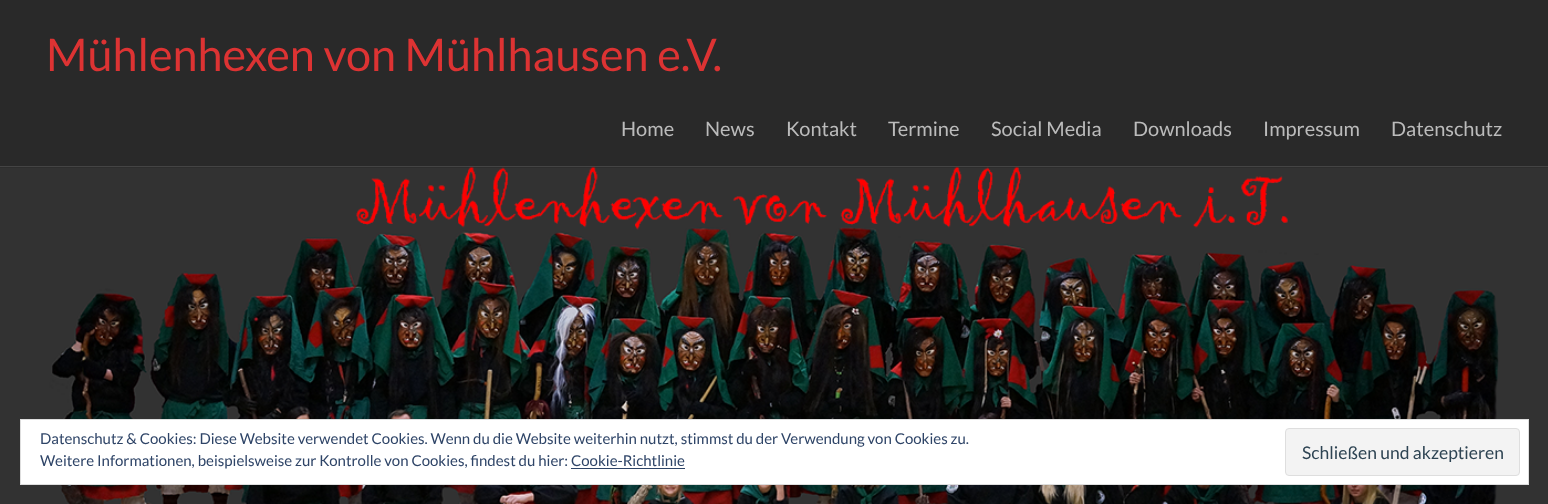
<?xml version="1.0" encoding="UTF-8"?>
<svg xmlns="http://www.w3.org/2000/svg" width="1548" height="504">
    <rect width="100%" height="100%" fill="#292929"/>
    <rect x="0" y="166" width="1548" height="1" fill="#444444"/>
    <text x="46" y="71" font-family="Lato" font-size="45" fill="#DD3333">Mühlenhexen von Mühlhausen e.V.</text>
    <text x="621" y="136" font-family="Lato" font-size="20" fill="#BBBBBB">Home</text>
    <text x="705" y="136" font-family="Lato" font-size="20" fill="#BBBBBB">News</text>
    <text x="786" y="136" font-family="Lato" font-size="20" fill="#BBBBBB">Kontakt</text>
    <text x="888" y="136" font-family="Lato" font-size="20" fill="#BBBBBB">Termine</text>
    <text x="991" y="136" font-family="Lato" font-size="20" fill="#BBBBBB">Social Media</text>
    <text x="1133" y="136" font-family="Lato" font-size="20" fill="#BBBBBB">Downloads</text>
    <text x="1263" y="136" font-family="Lato" font-size="20" fill="#BBBBBB">Impressum</text>
    <text x="1391" y="136" font-family="Lato" font-size="20" fill="#BBBBBB">Datenschutz</text>
    <image x="0" y="167" width="1548" height="337" href="img_01.png"/>
    <rect x="20.5" y="419.5" width="1508" height="65" fill="#FFFFFF" stroke="#DEDEDE"/>
    <text font-family="Lato" font-size="15" fill="#2E4467">
        <tspan x="40" y="444">Datenschutz &amp; Cookies: Diese Website verwendet Cookies. Wenn du die Website weiterhin nutzt, stimmst du der Verwendung von Cookies zu.</tspan>
        <tspan x="40" y="466">Weitere Informationen, beispielsweise zur Kontrolle von Cookies, findest du hier: Cookie-Richtlinie</tspan>
    </text>
    <rect x="1285.5" y="428.5" width="234" height="47" rx="3.5" fill="#F3F3F3" stroke="#DEDEDE"/>
    <text x="1302" y="459" font-family="Lato" font-size="17.5" fill="#2E4453">Schließen und akzeptieren</text>
    <rect x="571" y="468" width="114" height="1" fill="#2E4467"/>
</svg>
